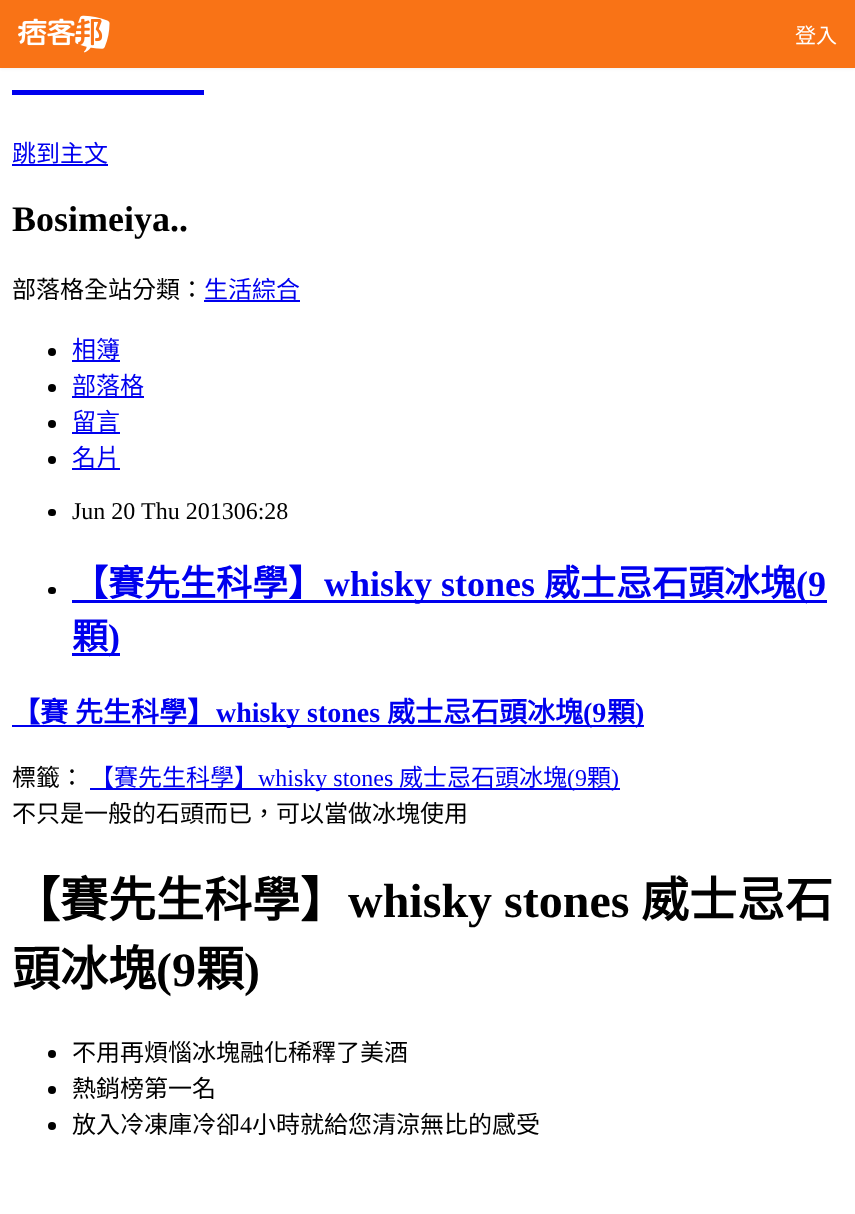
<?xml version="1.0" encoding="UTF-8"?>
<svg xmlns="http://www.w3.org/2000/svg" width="855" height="1214">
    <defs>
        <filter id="blur1" x="-50%" y="-200%" width="200%" height="500%"><feGaussianBlur stdDeviation="1.5"/></filter>
    </defs>
    <rect width="100%" height="100%" fill="#FFFFFF"/>
    <rect x="0" y="2" width="855" height="67" fill="#000000" fill-opacity="0.05" filter="url(#blur1)"/>
    <rect x="0" y="0" width="855" height="68" fill="#F97316"/>
    <image x="18" y="15" width="92" height="38" href="img_01.png"/>
    <text x="795" y="43" font-family="Noto Sans CJK TC" font-size="21" fill="#FFFFFF">登入</text>
    <rect x="12" y="90" width="192" height="5" fill="#0000EE"/>
    <text x="12" y="162" font-family="Noto Sans CJK TC" font-size="24" fill="#0000EE">跳到主文</text>
    <rect x="12" y="164" width="96" height="2" fill="#0000EE"/>
    <text x="12" y="231" font-family="Liberation Serif" font-size="36" font-weight="700" fill="#000000">Bosimeiya..</text>
    <text x="12" y="298" font-family="Noto Sans CJK TC" font-size="24" fill="#000000">部落格全站分類：</text>
    <text x="204" y="298" font-family="Noto Sans CJK TC" font-size="24" fill="#0000EE">生活綜合</text>
    <rect x="204" y="300" width="96" height="2" fill="#0000EE"/>
    <circle cx="52" cy="352" r="4" fill="#000000"/>
    <text x="72" y="358" font-family="Noto Sans CJK TC" font-size="24" fill="#0000EE">相簿</text>
    <rect x="72" y="360" width="48" height="2" fill="#0000EE"/>
    <circle cx="52" cy="388" r="4" fill="#000000"/>
    <text x="72" y="394" font-family="Noto Sans CJK TC" font-size="24" fill="#0000EE">部落格</text>
    <rect x="72" y="396" width="72" height="2" fill="#0000EE"/>
    <circle cx="52" cy="424" r="4" fill="#000000"/>
    <text x="72" y="430" font-family="Noto Sans CJK TC" font-size="24" fill="#0000EE">留言</text>
    <rect x="72" y="432" width="48" height="2" fill="#0000EE"/>
    <circle cx="52" cy="460" r="4" fill="#000000"/>
    <text x="72" y="466" font-family="Noto Sans CJK TC" font-size="24" fill="#0000EE">名片</text>
    <rect x="72" y="468" width="48" height="2" fill="#0000EE"/>
    <rect x="48" y="509" width="8" height="7" rx="3.5" fill="#000000"/>
    <text x="72" y="519" font-family="Liberation Serif" font-size="24" fill="#000000">Jun 20</text>
    <text x="141" y="519" font-family="Liberation Serif" font-size="24" fill="#000000">Thu 201306:28</text>
    <rect x="48" y="587" width="8" height="7" rx="3.5" fill="#000000"/>
    <text x="72" y="596" font-family="Noto Sans CJK TC" font-size="36" font-weight="700" fill="#0000EE">【賽先生科學】</text>
    <rect x="72" y="600" width="755" height="3" fill="#0000EE"/>
    <text x="324" y="596" font-family="Liberation Serif" font-size="36" font-weight="700" fill="#0000EE">whisky stones</text>
    <text x="544" y="596" font-family="Noto Sans CJK TC" font-size="36" font-weight="700" fill="#0000EE">威士忌石頭冰塊</text>
    <text x="796" y="596" font-family="Liberation Serif" font-size="36" font-weight="700" fill="#0000EE">(9</text>
    <text x="72" y="649" font-family="Noto Sans CJK TC" font-size="36" font-weight="700" fill="#0000EE">顆</text>
    <rect x="72" y="653" width="48" height="3" fill="#0000EE"/>
    <text x="108" y="649" font-family="Liberation Serif" font-size="36" font-weight="700" fill="#0000EE">)</text>
    <text x="12" y="722" font-family="Noto Sans CJK TC" font-size="28" font-weight="700" fill="#0000EE">【賽</text>
    <text x="75" y="722" font-family="Noto Sans CJK TC" font-size="28" font-weight="700" fill="#0000EE">先生科學】</text>
    <rect x="12" y="725" width="632" height="2" fill="#0000EE"/>
    <text x="216" y="722" font-family="Liberation Serif" font-size="28" font-weight="700" fill="#0000EE">whisky stones</text>
    <text x="387" y="722" font-family="Noto Sans CJK TC" font-size="28" font-weight="700" fill="#0000EE">威士忌石頭冰塊</text>
    <text x="583" y="722" font-family="Liberation Serif" font-size="28" font-weight="700" fill="#0000EE">(9</text>
    <text x="607" y="722" font-family="Noto Sans CJK TC" font-size="28" font-weight="700" fill="#0000EE">顆</text>
    <text x="635" y="722" font-family="Liberation Serif" font-size="28" font-weight="700" fill="#0000EE">)</text>
    <text x="12" y="786" font-family="Noto Sans CJK TC" font-size="24" fill="#000000">標籤：</text>
    <rect x="90" y="788" width="530" height="2" fill="#0000EE"/>
    <text x="90" y="786" font-family="Noto Sans CJK TC" font-size="24" fill="#0000EE">【賽先生科學】</text>
    <text x="258" y="786" font-family="Liberation Serif" font-size="24" fill="#0000EE">whisky stones</text>
    <text x="399" y="786" font-family="Noto Sans CJK TC" font-size="24" fill="#0000EE">威士忌石頭冰塊</text>
    <text x="567" y="786" font-family="Liberation Serif" font-size="24" fill="#0000EE">(9</text>
    <text x="587" y="786" font-family="Noto Sans CJK TC" font-size="24" fill="#0000EE">顆</text>
    <text x="611" y="786" font-family="Liberation Serif" font-size="24" fill="#0000EE">)</text>
    <text x="12" y="822" font-family="Noto Sans CJK TC" font-size="24" fill="#000000">不只是一般的石頭而已，可以當做冰塊使用</text>
    <text x="12" y="917" font-family="Noto Sans CJK TC" font-size="48" font-weight="700" fill="#000000">【賽先生科學】</text>
    <text x="348" y="917" font-family="Liberation Serif" font-size="48" font-weight="700" fill="#000000">whisky stones</text>
    <text x="641" y="917" font-family="Noto Sans CJK TC" font-size="48" font-weight="700" fill="#000000">威士忌石</text>
    <text x="12" y="986" font-family="Noto Sans CJK TC" font-size="48" font-weight="700" fill="#000000">頭冰塊</text>
    <text x="156" y="986" font-family="Liberation Serif" font-size="48" font-weight="700" fill="#000000">(9</text>
    <text x="196" y="986" font-family="Noto Sans CJK TC" font-size="48" font-weight="700" fill="#000000">顆</text>
    <text x="244" y="986" font-family="Liberation Serif" font-size="48" font-weight="700" fill="#000000">)</text>
    <circle cx="52" cy="1054" r="4" fill="#000000"/>
    <text x="72" y="1061" font-family="Noto Sans CJK TC" font-size="24" fill="#000000">不用再煩惱冰塊融化稀釋了美酒</text>
    <circle cx="52" cy="1090" r="4" fill="#000000"/>
    <text x="72" y="1097" font-family="Noto Sans CJK TC" font-size="24" fill="#000000">熱銷榜第一名</text>
    <circle cx="52" cy="1126" r="4" fill="#000000"/>
    <text x="72" y="1133" font-family="Noto Sans CJK TC" font-size="24" fill="#000000">放入冷凍庫冷卻</text>
    <text x="240" y="1133" font-family="Liberation Serif" font-size="24" fill="#000000">4</text>
    <text x="252" y="1133" font-family="Noto Sans CJK TC" font-size="24" fill="#000000">小時就給您清涼無比的感受</text>
</svg>
